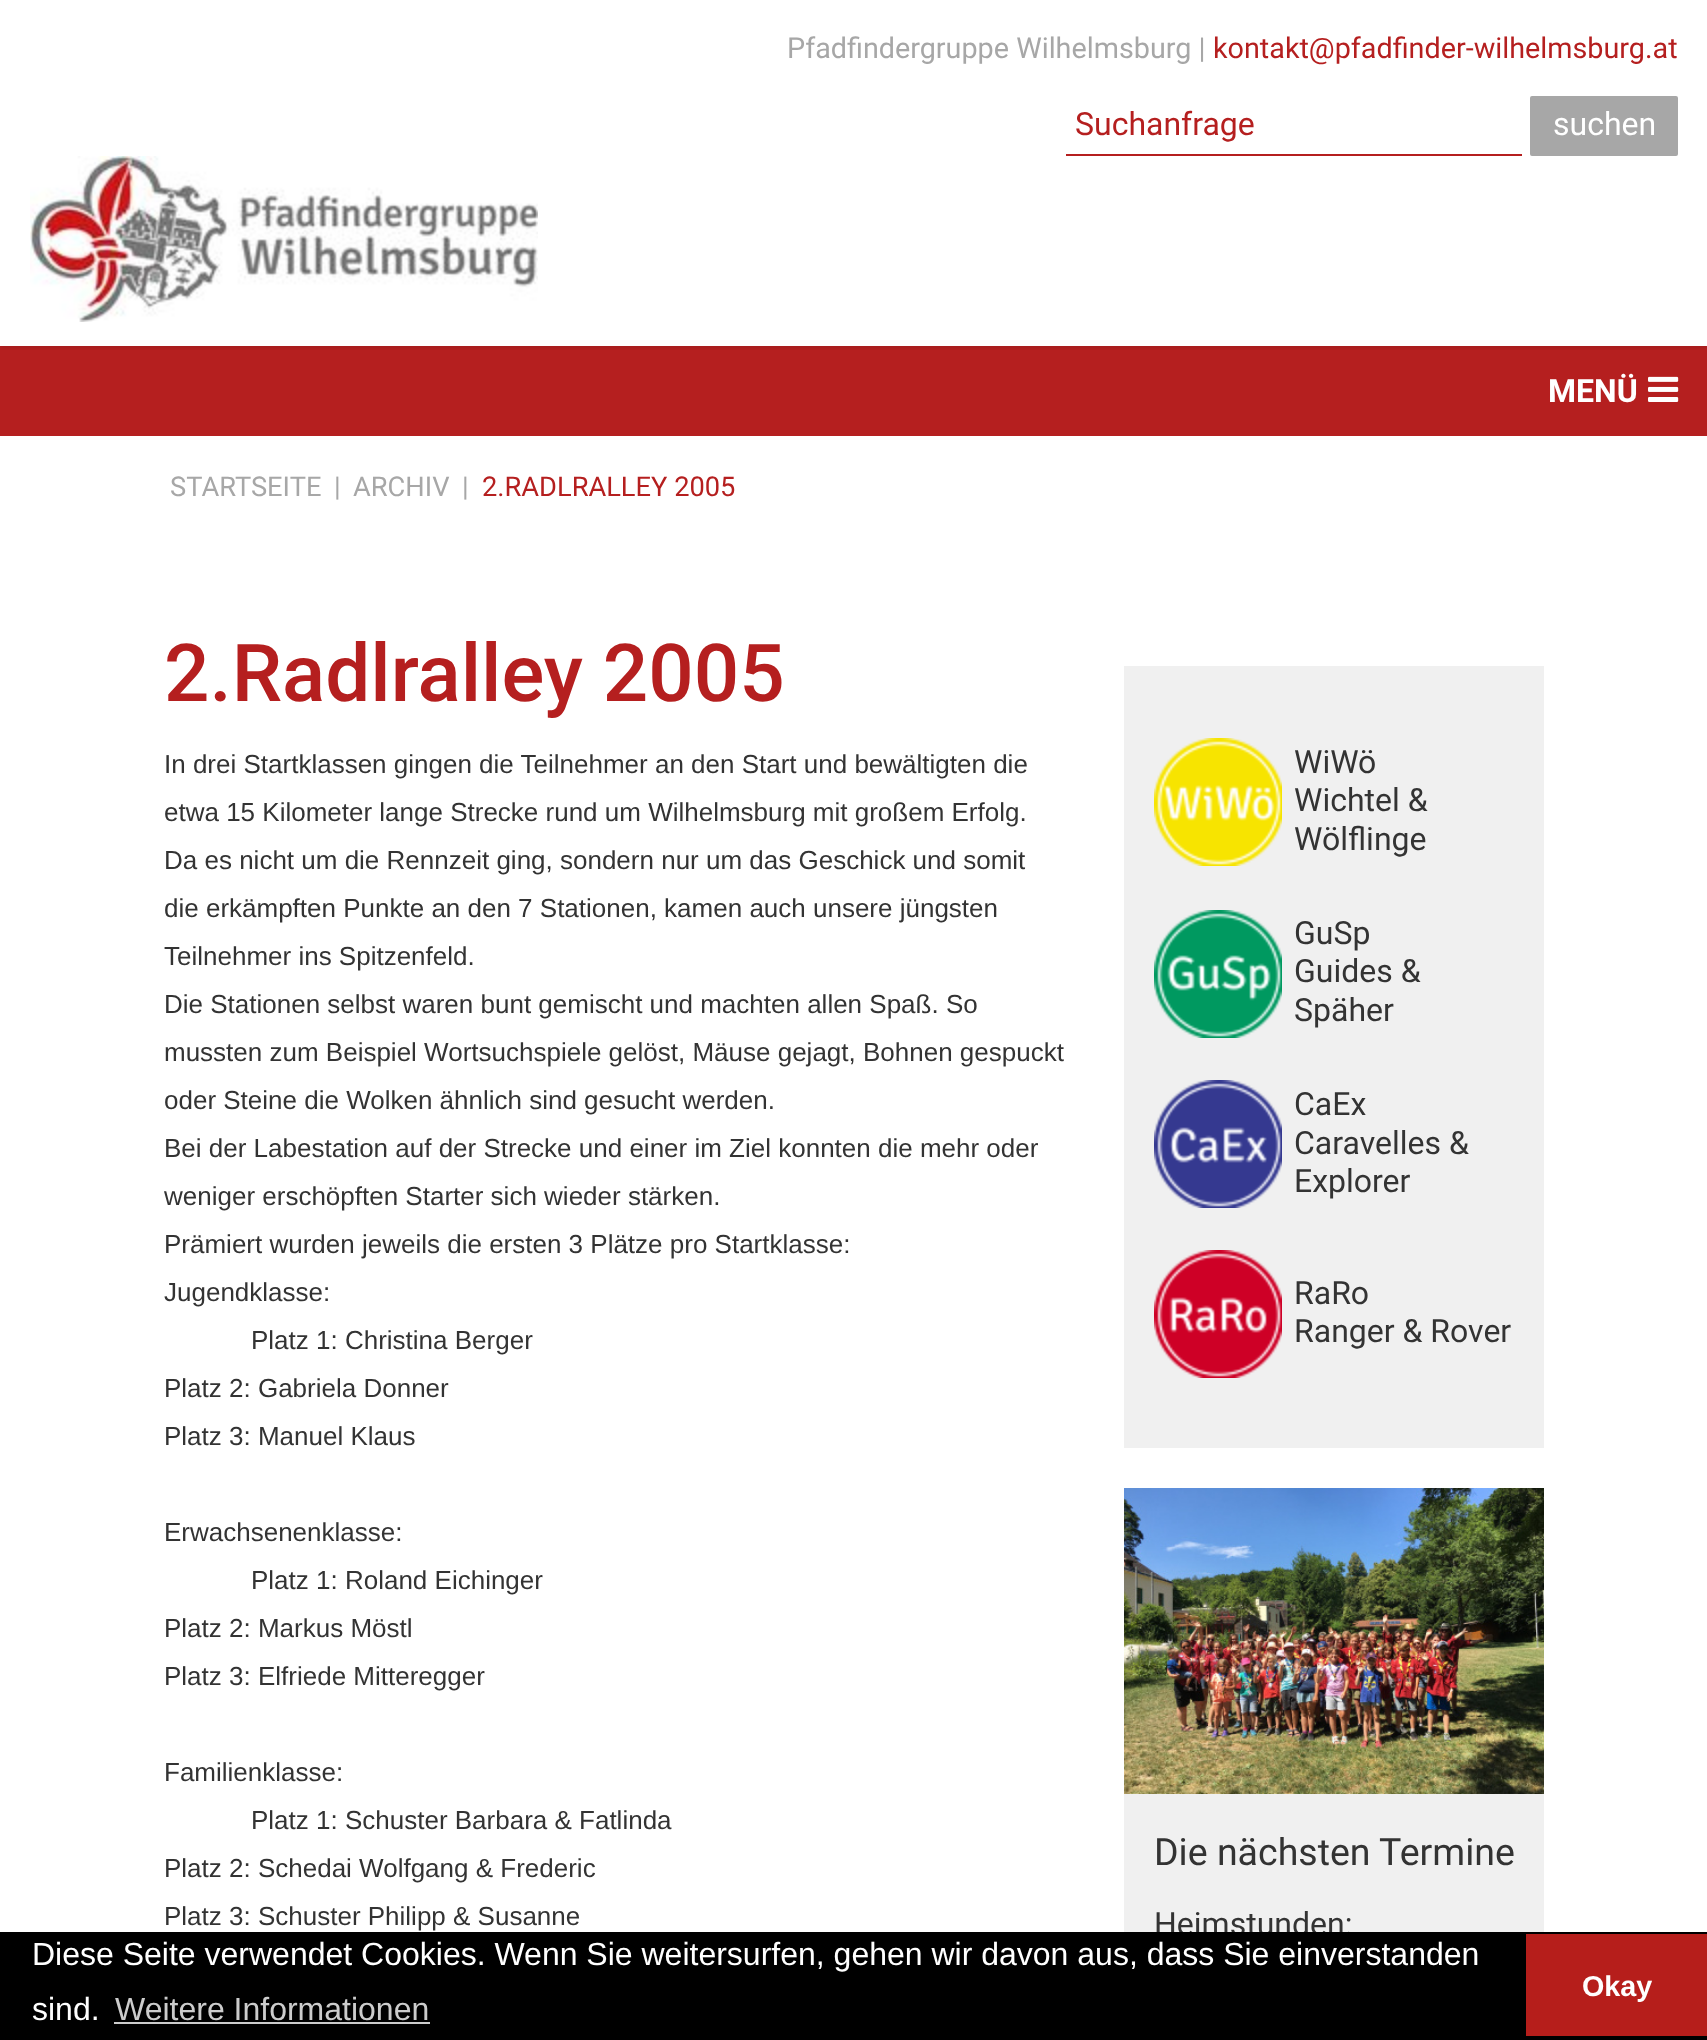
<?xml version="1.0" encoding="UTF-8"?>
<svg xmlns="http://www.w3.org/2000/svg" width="1707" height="2040">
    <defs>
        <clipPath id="clip1"><rect x="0" y="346" width="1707" height="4"/></clipPath>
        <filter id="blur1" x="-50%" y="-200%" width="200%" height="500%"><feGaussianBlur stdDeviation="2"/></filter>
    </defs>
    <rect width="100%" height="100%" fill="#FFFFFF"/>
    <text x="787" y="58" font-family="Roboto" font-size="28.75" fill="#A7A7A7">Pfadfindergruppe Wilhelmsburg |</text>
    <text x="1213" y="58" font-family="Roboto" font-size="28.75" fill="#B51F1F">kontakt@pfadfinder-wilhelmsburg.at</text>
    <rect x="0" y="346" width="1707" height="90" fill="#B51F1F"/>
    <g clip-path="url(#clip1)">
        <rect x="0" y="158" width="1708" height="190" fill="#000000" fill-opacity="0.1" filter="url(#blur1)"/>
    </g>
    <rect x="1066" y="154" width="456" height="2" fill="#B51F1F"/>
    <text x="1075" y="135" font-family="Roboto" font-size="32" fill="#B51F1F">Suchanfrage</text>
    <rect x="1531" y="97" width="146" height="58" rx="1" fill="#A7A7A7" stroke="#A7A7A7" stroke-width="2"/>
    <text x="1553" y="135" font-family="Roboto" font-size="32" fill="#FFFFFF">suchen</text>
    <image x="30" y="156" width="508" height="166" href="img_01.png"/>
    <text x="1548" y="402" font-family="Roboto" font-size="32" font-weight="700" fill="#FFFFFF">MENÜ</text>
    <image x="1648" y="376" width="31" height="26" href="img_02.png"/>
    <text x="170" y="496" font-family="Roboto" font-size="27.25" fill="#A7A7A7">STARTSEITE</text>
    <text x="334" y="496" font-family="Roboto" font-size="27.25" fill="#A7A7A7">|</text>
    <text x="353" y="496" font-family="Roboto" font-size="27.25" fill="#A7A7A7">ARCHIV</text>
    <text x="462" y="496" font-family="Roboto" font-size="27.25" fill="#A7A7A7">|</text>
    <text x="482" y="496" font-family="Roboto" font-size="27.25" fill="#B51F1F">2.RADLRALLEY 2005</text>
    <text x="164" y="701" font-family="Roboto" font-size="80" font-weight="500" fill="#B51F1F">2.Radlralley 2005</text>
    <text font-family="Liberation Sans" font-size="26" fill="#333333">
        <tspan x="164" y="773">In drei Startklassen gingen die Teilnehmer an den Start und bewältigten die</tspan>
        <tspan x="164" y="821">etwa 15 Kilometer lange Strecke rund um Wilhelmsburg mit großem Erfolg.</tspan>
        <tspan x="164" y="869">Da es nicht um die Rennzeit ging, sondern nur um das Geschick und somit</tspan>
        <tspan x="164" y="917">die erkämpften Punkte an den 7 Stationen, kamen auch unsere jüngsten</tspan>
        <tspan x="164" y="965">Teilnehmer ins Spitzenfeld.</tspan>
        <tspan x="164" y="1013">Die Stationen selbst waren bunt gemischt und machten allen Spaß. So</tspan>
        <tspan x="164" y="1061">mussten zum Beispiel Wortsuchspiele gelöst, Mäuse gejagt, Bohnen gespuckt</tspan>
        <tspan x="164" y="1109">oder Steine die Wolken ähnlich sind gesucht werden.</tspan>
        <tspan x="164" y="1157">Bei der Labestation auf der Strecke und einer im Ziel konnten die mehr oder</tspan>
        <tspan x="164" y="1205">weniger erschöpften Starter sich wieder stärken.</tspan>
        <tspan x="164" y="1253">Prämiert wurden jeweils die ersten 3 Plätze pro Startklasse:</tspan>
        <tspan x="164" y="1301">Jugendklasse:</tspan>
    </text>
    <text x="251" y="1349" font-family="Liberation Sans" font-size="26" fill="#333333">Platz 1: Christina Berger</text>
    <text font-family="Liberation Sans" font-size="26" fill="#333333">
        <tspan x="164" y="1397">Platz 2: Gabriela Donner</tspan>
        <tspan x="164" y="1445">Platz 3: Manuel Klaus</tspan>
    </text>
    <text x="164" y="1541" font-family="Liberation Sans" font-size="26" fill="#333333">Erwachsenenklasse:</text>
    <text x="251" y="1589" font-family="Liberation Sans" font-size="26" fill="#333333">Platz 1: Roland Eichinger</text>
    <text font-family="Liberation Sans" font-size="26" fill="#333333">
        <tspan x="164" y="1637">Platz 2: Markus Möstl</tspan>
        <tspan x="164" y="1685">Platz 3: Elfriede Mitteregger</tspan>
    </text>
    <text x="164" y="1781" font-family="Liberation Sans" font-size="26" fill="#333333">Familienklasse:</text>
    <text x="251" y="1829" font-family="Liberation Sans" font-size="26" fill="#333333">Platz 1: Schuster Barbara &amp; Fatlinda</text>
    <text font-family="Liberation Sans" font-size="26" fill="#333333">
        <tspan x="164" y="1877">Platz 2: Schedai Wolfgang &amp; Frederic</tspan>
        <tspan x="164" y="1925">Platz 3: Schuster Philipp &amp; Susanne</tspan>
    </text>
    <rect x="1124" y="666" width="420" height="782" fill="#F0F0F0"/>
    <image x="1154" y="738" width="128" height="128" href="img_03.png"/>
    <text font-family="Roboto" font-size="32" fill="#333333">
        <tspan x="1294" y="773">WiWö</tspan>
        <tspan x="1294" y="811">Wichtel &amp;</tspan>
        <tspan x="1294" y="850">Wölflinge</tspan>
    </text>
    <image x="1154" y="910" width="128" height="128" href="img_04.png"/>
    <text font-family="Roboto" font-size="32" fill="#333333">
        <tspan x="1294" y="944">GuSp</tspan>
        <tspan x="1294" y="982">Guides &amp;</tspan>
        <tspan x="1294" y="1021">Späher</tspan>
    </text>
    <image x="1154" y="1080" width="128" height="128" href="img_05.png"/>
    <text font-family="Roboto" font-size="32" fill="#333333">
        <tspan x="1294" y="1115">CaEx</tspan>
        <tspan x="1294" y="1154">Caravelles &amp;</tspan>
        <tspan x="1294" y="1192">Explorer</tspan>
    </text>
    <image x="1154" y="1250" width="128" height="128" href="img_06.png"/>
    <text font-family="Roboto" font-size="32" fill="#333333">
        <tspan x="1294" y="1304">RaRo</tspan>
        <tspan x="1294" y="1342">Ranger &amp; Rover</tspan>
    </text>
    <rect x="1124" y="1794" width="420" height="138" fill="#F0F0F0"/>
    <image x="1124" y="1488" width="420" height="306" href="img_07.png"/>
    <text x="1154" y="1865" font-family="Roboto" font-size="37.5" fill="#333333">Die nächsten Termine</text>
    <text x="1154" y="1935" font-family="Roboto" font-size="32" fill="#333333">Heimstunden:</text>
    <rect x="0" y="1932" width="1707" height="108" fill="#000000"/>
    <text font-family="Liberation Sans" font-size="32" fill="#FFFFFF">
        <tspan x="32" y="1965">Diese Seite verwendet Cookies. Wenn Sie weitersurfen, gehen wir davon aus, dass Sie einverstanden</tspan>
        <tspan x="32" y="2020">sind.</tspan>
    </text>
    <text x="115" y="2020" font-family="Liberation Sans" font-size="32" fill="#CCCCCC">Weitere Informationen</text>
    <rect x="114" y="2022" width="316" height="2" fill="#CCCCCC"/>
    <rect x="1526" y="1934" width="181" height="102" fill="#B61E1B"/>
    <text x="1582" y="1996" font-family="Liberation Sans" font-size="28.75" font-weight="700" fill="#FFFFFF">Okay</text>
</svg>
